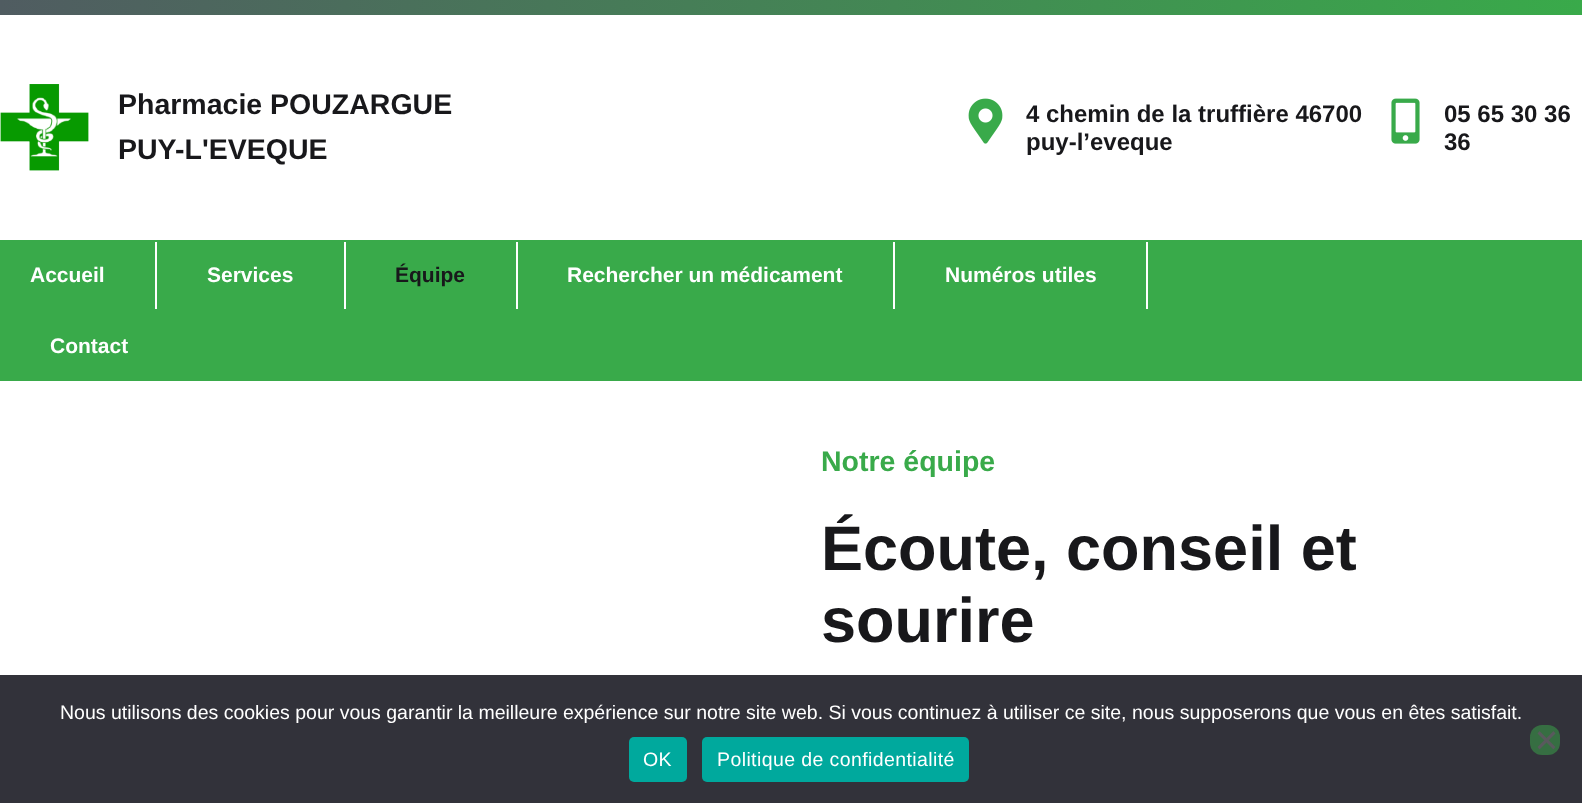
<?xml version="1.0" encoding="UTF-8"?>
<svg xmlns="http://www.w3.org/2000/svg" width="1582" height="803">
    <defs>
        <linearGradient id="g1" gradientUnits="userSpaceOnUse" x1="0" y1="7.5" x2="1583" y2="7.5"><stop offset="0" stop-color="#505C61"/><stop offset="1" stop-color="#39AA4A"/></linearGradient>
    </defs>
    <rect width="100%" height="100%" fill="#FFFFFF"/>
    <rect x="0" y="0" width="1582" height="15" fill="url(#g1)"/>
    <image x="0" y="84" width="89" height="87" href="img_01.png"/>
    <text font-family="Liberation Sans" font-size="28.5" font-weight="700" fill="#18181B">
        <tspan x="118" y="114">Pharmacie POUZARGUE</tspan>
        <tspan x="118" y="159">PUY-L'EVEQUE</tspan>
    </text>
    <image x="968" y="98" width="35" height="46" href="img_02.png"/>
    <text font-family="Liberation Sans" font-size="24" font-weight="700" fill="#18181B">
        <tspan x="1026" y="122">4 chemin de la truffière 46700</tspan>
        <tspan x="1026" y="150">puy-l’eveque</tspan>
    </text>
    <image x="1391" y="98" width="29" height="46" href="img_03.png"/>
    <text font-family="Liberation Sans" font-size="24" font-weight="700" fill="#18181B">
        <tspan x="1444" y="122">05 65 30 36</tspan>
        <tspan x="1444" y="150">36</tspan>
    </text>
    <rect x="0" y="240" width="1582" height="141" fill="#39AA4A"/>
    <text x="30" y="282" font-family="Liberation Sans" font-size="21" font-weight="700" fill="#FFFFFF">Accueil</text>
    <rect x="155" y="242" width="2" height="67" fill="#FFFFFF"/>
    <text x="207" y="282" font-family="Liberation Sans" font-size="21" font-weight="700" fill="#FFFFFF">Services</text>
    <rect x="344" y="242" width="2" height="67" fill="#FFFFFF"/>
    <text x="395" y="282" font-family="Liberation Sans" font-size="21" font-weight="700" fill="#18181B">Équipe</text>
    <rect x="516" y="242" width="2" height="67" fill="#FFFFFF"/>
    <text x="567" y="282" font-family="Liberation Sans" font-size="21" font-weight="700" fill="#FFFFFF">Rechercher un médicament</text>
    <rect x="893" y="242" width="2" height="67" fill="#FFFFFF"/>
    <text x="945" y="282" font-family="Liberation Sans" font-size="21" font-weight="700" fill="#FFFFFF">Numéros utiles</text>
    <rect x="1146" y="242" width="2" height="67" fill="#FFFFFF"/>
    <text x="50" y="353" font-family="Liberation Sans" font-size="21" font-weight="700" fill="#FFFFFF">Contact</text>
    <text x="821" y="471" font-family="Liberation Sans" font-size="28.5" font-weight="700" fill="#39AA4A">Notre équipe</text>
    <text font-family="Liberation Sans" font-size="63" font-weight="700" fill="#18181B">
        <tspan x="821" y="570">Écoute, conseil et</tspan>
        <tspan x="821" y="642">sourire</tspan>
    </text>
    <rect x="0" y="675" width="1582" height="128" fill="#32323A"/>
    <text x="60" y="719" font-family="Liberation Sans" font-size="19.5" fill="#FFFFFF">Nous utilisons des cookies pour vous garantir la meilleure expérience sur notre site web. Si vous continuez à utiliser ce site, nous supposerons que vous en êtes satisfait.</text>
    <rect x="1530" y="725" width="30" height="30" rx="12" fill="#366E42"/>
    <path d="M 1553.5 731 L 1555.5 733.5 L 1539.5 749.5 L 1537.5 747 Z" fill="#59595D"/>
    <path d="M 1537.5 733.5 L 1539.5 731 L 1555.5 747 L 1553.5 749.5 Z" fill="#59595D"/>
    <rect x="629" y="737" width="58" height="45" rx="5" fill="#00A99D"/>
    <text x="643" y="766" font-family="Liberation Sans" font-size="19.5" letter-spacing="0.4" fill="#FFFFFF">OK</text>
    <rect x="702" y="737" width="267" height="45" rx="5" fill="#00A99D"/>
    <text x="717" y="766" font-family="Liberation Sans" font-size="19.5" letter-spacing="0.4" fill="#FFFFFF">Politique de confidentialité</text>
</svg>
